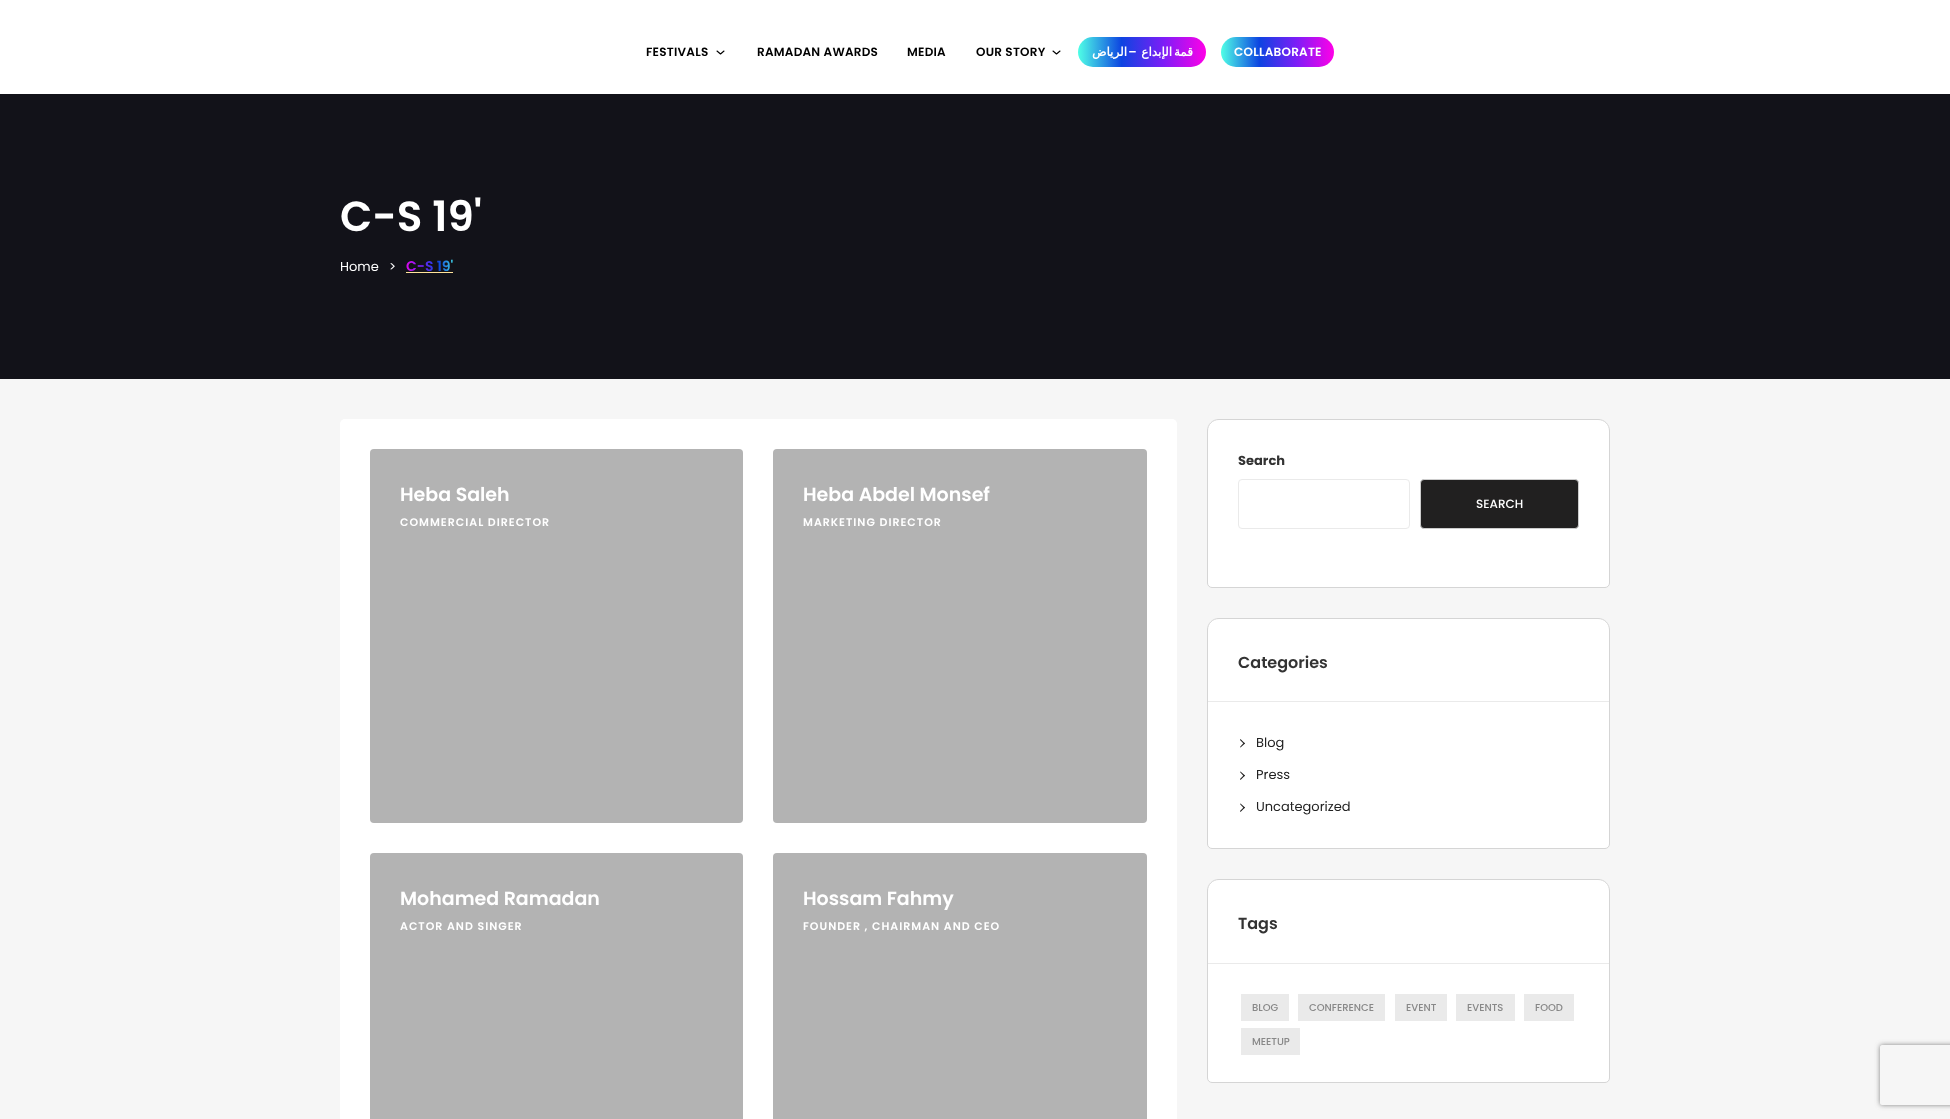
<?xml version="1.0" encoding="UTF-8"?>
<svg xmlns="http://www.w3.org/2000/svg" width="1950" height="1119">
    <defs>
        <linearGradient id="g1" gradientUnits="userSpaceOnUse" x1="401" y1="267" x2="458" y2="267"><stop offset="0" stop-color="#FF00E7"/><stop offset="0.33" stop-color="#7D1DF7"/><stop offset="0.66" stop-color="#0D44E1"/><stop offset="1" stop-color="#4FFFE6"/></linearGradient>
        <linearGradient id="g2" gradientUnits="userSpaceOnUse" x1="1206" y1="52" x2="1078" y2="52"><stop offset="0" stop-color="#FF00E7"/><stop offset="0.33" stop-color="#7D1DF7"/><stop offset="0.66" stop-color="#0D44E1"/><stop offset="1" stop-color="#4FFFE6"/></linearGradient>
        <linearGradient id="g3" gradientUnits="userSpaceOnUse" x1="1334" y1="52" x2="1221" y2="52"><stop offset="0" stop-color="#FF00E7"/><stop offset="0.33" stop-color="#7D1DF7"/><stop offset="0.66" stop-color="#0D44E1"/><stop offset="1" stop-color="#4FFFE6"/></linearGradient>
        <clipPath id="clip1"><path d="M 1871 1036 H 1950 V 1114 H 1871 Z M 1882 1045 H 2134 C 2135 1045 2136 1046 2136 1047 V 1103 C 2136 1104 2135 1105 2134 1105 H 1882 C 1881 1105 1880 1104 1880 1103 V 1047 C 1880 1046 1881 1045 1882 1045 Z" clip-rule="evenodd"/></clipPath>
        <filter id="blur1" x="-50%" y="-200%" width="200%" height="500%"><feGaussianBlur stdDeviation="2.5"/></filter>
    </defs>
    <rect width="100%" height="100%" fill="#F6F6F6"/>
    <rect x="0" y="0" width="1950" height="94" fill="#FFFFFF"/>
    <text x="646" y="56" font-family="Poppins" font-size="12" font-weight="600" letter-spacing="0.25" fill="#000000">FESTIVALS</text>
    <path d="M 717 51 L 720.5 54 L 724 51" fill="none" stroke="#000000" stroke-width="1.1" stroke-linecap="round" stroke-linejoin="round"/>
    <text x="757" y="56" font-family="Poppins" font-size="12" font-weight="600" letter-spacing="0.25" fill="#000000">RAMADAN AWARDS</text>
    <text x="907" y="56" font-family="Poppins" font-size="12" font-weight="600" letter-spacing="0.25" fill="#000000">MEDIA</text>
    <text x="976" y="56" font-family="Poppins" font-size="12" font-weight="600" letter-spacing="0.25" fill="#000000">OUR STORY</text>
    <path d="M 1053 51 L 1056.5 54 L 1060 51" fill="none" stroke="#000000" stroke-width="1.1" stroke-linecap="round" stroke-linejoin="round"/>
    <rect x="1078" y="37" width="128" height="30" rx="15" fill="url(#g2)"/>
    <text x="1127" y="56" font-family="DejaVu Sans" font-size="12" font-weight="700" letter-spacing="0.25" direction="rtl" fill="#FFFFFF">الرياض</text>
    <text x="1137" y="56" font-family="Poppins" font-size="12" font-weight="600" letter-spacing="0.25" direction="rtl" fill="#FFFFFF">–</text>
    <text x="1193" y="56" word-spacing="-2" font-family="DejaVu Sans" font-size="12" font-weight="700" letter-spacing="0.25" direction="rtl" fill="#FFFFFF">قمة الإبداع</text>
    <rect x="1221" y="37" width="113" height="30" rx="15" fill="url(#g3)"/>
    <text x="1234" y="56" font-family="Poppins" font-size="12" font-weight="600" letter-spacing="0.25" fill="#FFFFFF">COLLABORATE</text>
    <rect x="0" y="94" width="1950" height="285" fill="#121219"/>
    <text x="340" y="231" font-family="Poppins" font-size="42" font-weight="600" fill="#FFFFFF">C-S 19'</text>
    <text x="340" y="271" font-family="Poppins" font-size="13" fill="#FFFFFF">Home</text>
    <text x="389" y="271" font-family="Poppins" font-size="13" fill="#FFFFFF">&gt;</text>
    <text x="406" y="271" font-family="Poppins" font-size="14" font-weight="600" fill="url(#g1)">C-S 19'</text>
    <rect x="406" y="272" width="47" height="1" fill="#FFE39B"/>
    <rect x="340" y="419" width="837" height="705" rx="5" fill="#FFFFFF"/>
    <rect x="370" y="449" width="373" height="374" rx="4" fill="#B3B3B3"/>
    <text x="400" y="501" font-family="Poppins" font-size="19" font-weight="600" fill="#FFFFFF">Heba Saleh</text>
    <text x="400" y="526" font-family="Poppins" font-size="11" font-weight="600" letter-spacing="1" fill="#FFFFFF">COMMERCIAL DIRECTOR</text>
    <rect x="773" y="449" width="374" height="374" rx="4" fill="#B3B3B3"/>
    <text x="803" y="501" font-family="Poppins" font-size="19" font-weight="600" fill="#FFFFFF">Heba Abdel Monsef</text>
    <text x="803" y="526" font-family="Poppins" font-size="11" font-weight="600" letter-spacing="1" fill="#FFFFFF">MARKETING DIRECTOR</text>
    <rect x="370" y="853" width="373" height="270" rx="4" fill="#B3B3B3"/>
    <text x="400" y="905" font-family="Poppins" font-size="19" font-weight="600" fill="#FFFFFF">Mohamed Ramadan</text>
    <text x="400" y="930" font-family="Poppins" font-size="11" font-weight="600" letter-spacing="1" fill="#FFFFFF">ACTOR AND SINGER</text>
    <rect x="773" y="853" width="374" height="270" rx="4" fill="#B3B3B3"/>
    <text x="803" y="905" font-family="Poppins" font-size="19" font-weight="600" fill="#FFFFFF">Hossam Fahmy</text>
    <text x="803" y="930" font-family="Poppins" font-size="11" font-weight="600" letter-spacing="1" fill="#FFFFFF">FOUNDER , CHAIRMAN AND CEO</text>
    <path d="M 1219 419.5 H 1598 C 1604.5 419.5 1609.5 424.5 1609.5 431 V 583 C 1609.5 585.5 1607.5 587.5 1605 587.5 H 1212 C 1209.5 587.5 1207.5 585.5 1207.5 583 V 431 C 1207.5 424.5 1212.5 419.5 1219 419.5 Z" fill="#FFFFFF" stroke="#D5D5D5"/>
    <text x="1238" y="465" font-family="Poppins" font-size="13" font-weight="700" fill="#333333">Search</text>
    <rect x="1238.5" y="479.5" width="171" height="49" rx="3.5" fill="none" stroke="#EAEAEA"/>
    <rect x="1420.5" y="479.5" width="158" height="49" rx="3.5" fill="#212020" stroke="#CCCCCC"/>
    <text x="1476" y="508" font-family="Poppins" font-size="12" font-weight="500" fill="#FFFFFF">SEARCH</text>
    <path d="M 1219 618.5 H 1598 C 1604.5 618.5 1609.5 623.5 1609.5 630 V 844 C 1609.5 846.5 1607.5 848.5 1605 848.5 H 1212 C 1209.5 848.5 1207.5 846.5 1207.5 844 V 630 C 1207.5 623.5 1212.5 618.5 1219 618.5 Z" fill="#FFFFFF" stroke="#D5D5D5"/>
    <rect x="1208" y="701" width="401" height="1" fill="#EAEAEA"/>
    <text x="1238" y="668" font-family="Poppins" font-size="16" font-weight="600" fill="#333333">Categories</text>
    <path d="M 1245 743.5 L 1240.5 747.5 L 1240 747 L 1244 742.5 Z" fill="#212020"/>
    <path d="M 1245 743.5 L 1244 744 L 1240 740 L 1240.5 739 Z M 1245 775.5 L 1240.5 780 L 1240 779 L 1244 775 Z" fill="#212020"/>
    <text x="1256" y="747" font-family="Poppins" font-size="13" fill="#222222">Blog</text>
    <path d="M 1245 775.5 L 1244 776.5 L 1240 772 L 1240.5 771.5 Z M 1245 807.5 L 1240.5 812 L 1240 811 L 1244 807 Z" fill="#212020"/>
    <text x="1256" y="779" font-family="Poppins" font-size="13" fill="#222222">Press</text>
    <path d="M 1245 807.5 L 1244 808.5 L 1240 804 L 1240.5 803.5 Z" fill="#212020"/>
    <text x="1256" y="811" font-family="Poppins" font-size="13" fill="#222222">Uncategorized</text>
    <path d="M 1219 879.5 H 1598 C 1604.5 879.5 1609.5 884.5 1609.5 891 V 1078 C 1609.5 1080.5 1607.5 1082.5 1605 1082.5 H 1212 C 1209.5 1082.5 1207.5 1080.5 1207.5 1078 V 891 C 1207.5 884.5 1212.5 879.5 1219 879.5 Z" fill="#FFFFFF" stroke="#D5D5D5"/>
    <rect x="1208" y="963" width="401" height="1" fill="#EAEAEA"/>
    <text x="1238" y="929" font-family="Poppins" font-size="16" font-weight="600" fill="#333333">Tags</text>
    <rect x="1241" y="994" width="48" height="27" fill="#EAEAEA"/>
    <text x="1252" y="1011" font-family="Poppins" font-size="10" font-weight="500" fill="#888888">BLOG</text>
    <rect x="1298" y="994" width="87" height="27" fill="#EAEAEA"/>
    <text x="1309" y="1011" font-family="Poppins" font-size="10" font-weight="500" fill="#888888">CONFERENCE</text>
    <rect x="1395" y="994" width="52" height="27" fill="#EAEAEA"/>
    <text x="1406" y="1011" font-family="Poppins" font-size="10" font-weight="500" fill="#888888">EVENT</text>
    <rect x="1456" y="994" width="59" height="27" fill="#EAEAEA"/>
    <text x="1467" y="1011" font-family="Poppins" font-size="10" font-weight="500" fill="#888888">EVENTS</text>
    <rect x="1524" y="994" width="50" height="27" fill="#EAEAEA"/>
    <text x="1535" y="1011" font-family="Poppins" font-size="10" font-weight="500" fill="#888888">FOOD</text>
    <rect x="1241" y="1028" width="59" height="27" fill="#EAEAEA"/>
    <text x="1252" y="1045" font-family="Poppins" font-size="10" font-weight="500" fill="#888888">MEETUP</text>
    <g clip-path="url(#clip1)">
        <rect x="1880" y="1045" width="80" height="60" rx="2" fill="#808080" filter="url(#blur1)"/>
    </g>
</svg>
